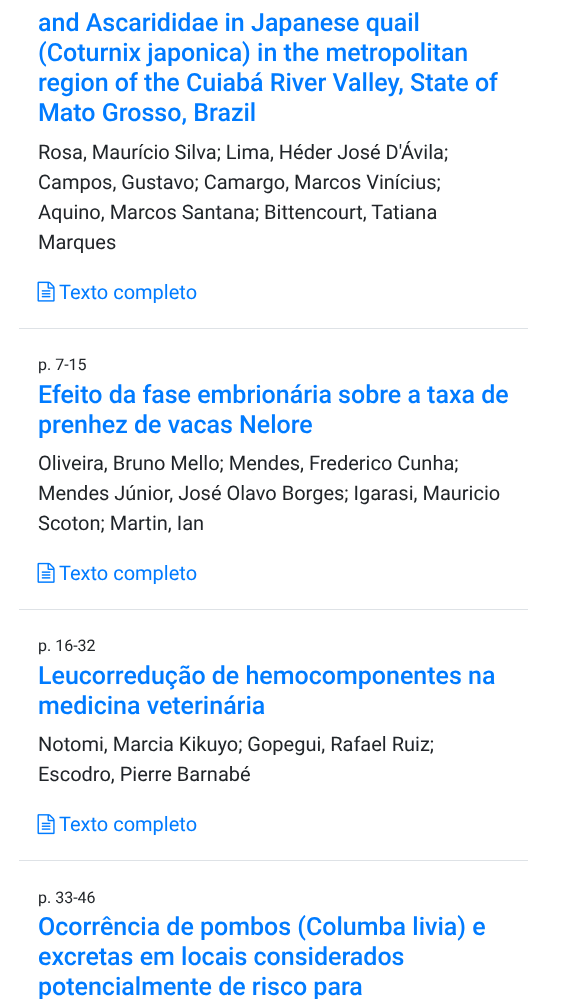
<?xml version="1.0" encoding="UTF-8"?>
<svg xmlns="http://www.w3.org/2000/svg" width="583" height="999">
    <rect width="100%" height="100%" fill="#FFFFFF"/>
    <rect x="19" y="328" width="509" height="1" fill="#DEE2E6"/>
    <text font-family="Roboto" font-size="25" font-weight="500" fill="#007BFF">
        <tspan x="38" y="31">and Ascarididae in Japanese quail</tspan>
        <tspan x="38" y="61">(Coturnix japonica) in the metropolitan</tspan>
        <tspan x="38" y="91">region of the Cuiabá River Valley, State of</tspan>
        <tspan x="38" y="121">Mato Grosso, Brazil</tspan>
    </text>
    <text font-family="Roboto" font-size="20" fill="#212529">
        <tspan x="38" y="159">Rosa, Maurício Silva; Lima, Héder José D'Ávila;</tspan>
        <tspan x="38" y="189">Campos, Gustavo; Camargo, Marcos Vinícius;</tspan>
        <tspan x="38" y="219">Aquino, Marcos Santana; Bittencourt, Tatiana</tspan>
        <tspan x="38" y="249">Marques</tspan>
    </text>
    <image x="37" y="281" width="18" height="21" href="img_01.png"/>
    <text x="59" y="299" font-family="Roboto" font-size="20" fill="#007BFF">Texto completo</text>
    <rect x="19" y="609" width="509" height="1" fill="#DEE2E6"/>
    <text x="38" y="370" font-family="Roboto" font-size="16" fill="#212529">p. 7-15</text>
    <text font-family="Roboto" font-size="25" font-weight="500" fill="#007BFF">
        <tspan x="38" y="403">Efeito da fase embrionária sobre a taxa de</tspan>
        <tspan x="38" y="433">prenhez de vacas Nelore</tspan>
    </text>
    <text font-family="Roboto" font-size="20" fill="#212529">
        <tspan x="38" y="470">Oliveira, Bruno Mello; Mendes, Frederico Cunha;</tspan>
        <tspan x="38" y="500">Mendes Júnior, José Olavo Borges; Igarasi, Mauricio</tspan>
        <tspan x="38" y="530">Scoton; Martin, Ian</tspan>
    </text>
    <image x="37" y="562" width="18" height="21" href="img_02.png"/>
    <text x="59" y="580" font-family="Roboto" font-size="20" fill="#007BFF">Texto completo</text>
    <rect x="19" y="860" width="509" height="1" fill="#DEE2E6"/>
    <text x="38" y="651" font-family="Roboto" font-size="16" fill="#212529">p. 16-32</text>
    <text font-family="Roboto" font-size="25" font-weight="500" fill="#007BFF">
        <tspan x="38" y="684">Leucorredução de hemocomponentes na</tspan>
        <tspan x="38" y="714">medicina veterinária</tspan>
    </text>
    <text font-family="Roboto" font-size="20" fill="#212529">
        <tspan x="38" y="751">Notomi, Marcia Kikuyo; Gopegui, Rafael Ruiz;</tspan>
        <tspan x="38" y="781">Escodro, Pierre Barnabé</tspan>
    </text>
    <image x="37" y="814" width="18" height="21" href="img_03.png"/>
    <text x="59" y="831" font-family="Roboto" font-size="20" fill="#007BFF">Texto completo</text>
    <text x="38" y="903" font-family="Roboto" font-size="16" fill="#212529">p. 33-46</text>
    <text font-family="Roboto" font-size="25" font-weight="500" fill="#007BFF">
        <tspan x="38" y="935">Ocorrência de pombos (Columba livia) e</tspan>
        <tspan x="38" y="965">excretas em locais considerados</tspan>
        <tspan x="38" y="995">potencialmente de risco para</tspan>
    </text>
</svg>
